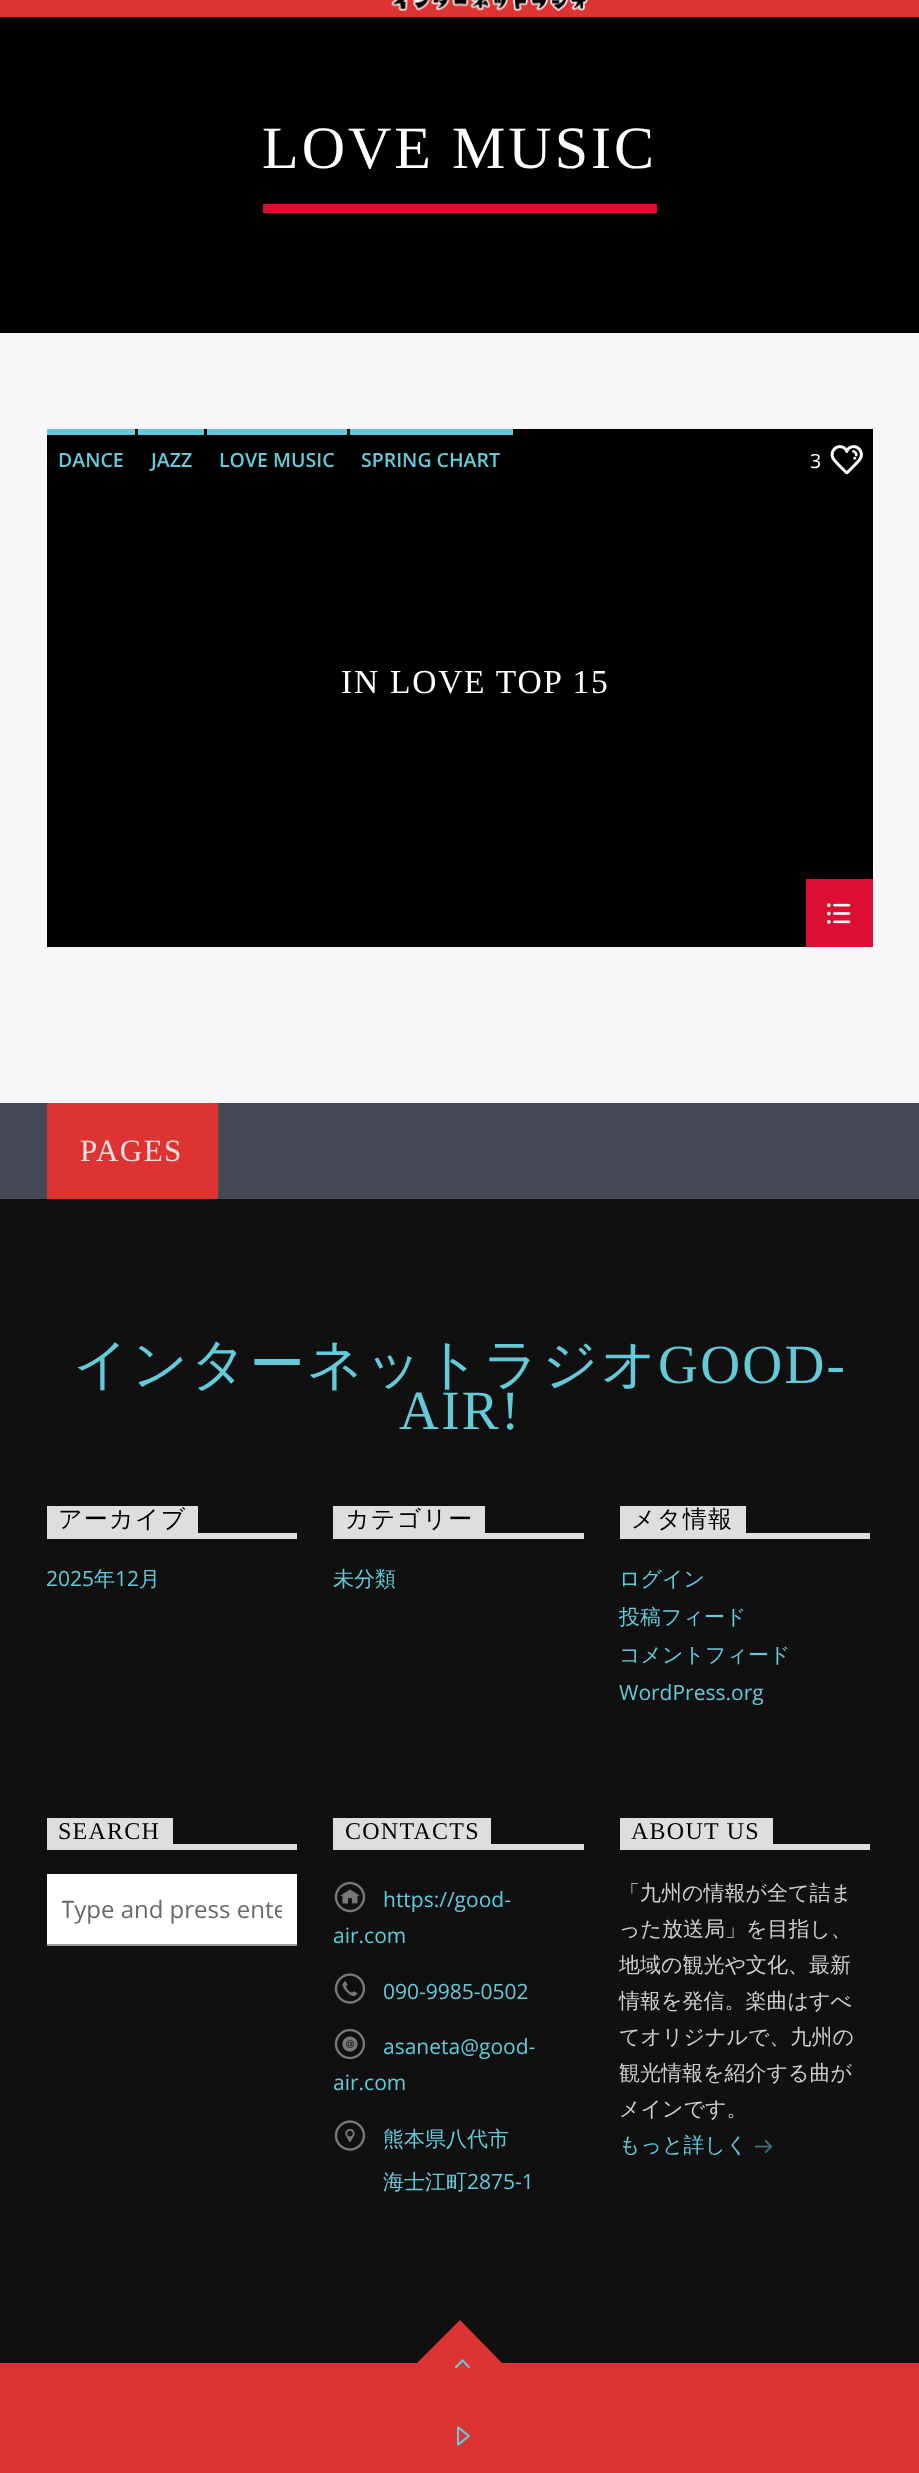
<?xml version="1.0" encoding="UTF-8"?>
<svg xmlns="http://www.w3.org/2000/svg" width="919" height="2473">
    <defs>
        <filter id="blur1" x="-50%" y="-200%" width="200%" height="500%"><feGaussianBlur stdDeviation="7.5"/></filter>
        <filter id="blur2" x="-50%" y="-200%" width="200%" height="500%"><feGaussianBlur stdDeviation="4"/></filter>
        <clipPath id="clip1"><rect x="62" y="1893" width="220" height="33"/></clipPath>
    </defs>
    <rect width="100%" height="100%" fill="#F7F7F9"/>
    <rect x="0" y="17" width="919" height="316" fill="#000000"/>
    <rect x="0" y="-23" width="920" height="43" fill="#000000" fill-opacity="0.12" filter="url(#blur1)"/>
    <rect x="0" y="-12" width="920" height="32" fill="#000000" fill-opacity="0.16" filter="url(#blur2)"/>
    <rect x="0" y="0" width="919" height="17" fill="#DE3333"/>
    <image x="391" y="0" width="197" height="11" href="img_01.png"/>
    <rect x="263" y="204" width="394" height="9" fill="#DD0E34"/>
    <text x="262" y="168" font-family="Liberation Serif" font-size="60" letter-spacing="3" fill="#FFFFFF">LOVE MUSIC</text>
    <rect x="47" y="429" width="826" height="518" fill="#000000"/>
    <rect x="47" y="429" width="88" height="6" fill="#64C9D9"/>
    <text x="58" y="467" font-family="Open Sans" font-size="19.5" font-weight="600" fill="#64C9D9">DANCE</text>
    <rect x="138" y="429" width="66" height="6" fill="#64C9D9"/>
    <text x="151" y="467" font-family="Open Sans" font-size="19.5" font-weight="600" fill="#64C9D9">JAZZ</text>
    <rect x="207" y="429" width="140" height="6" fill="#64C9D9"/>
    <text x="219" y="467" font-family="Open Sans" font-size="19.5" font-weight="600" fill="#64C9D9">LOVE MUSIC</text>
    <rect x="350" y="429" width="163" height="6" fill="#64C9D9"/>
    <text x="361" y="467" font-family="Open Sans" font-size="19.5" font-weight="600" fill="#64C9D9">SPRING CHART</text>
    <text x="810" y="468" font-family="Open Sans" font-size="19.5" fill="#FFFFFF">3</text>
    <image x="830" y="445" width="33" height="30" href="img_02.png"/>
    <text x="341" y="693" font-family="Liberation Serif" font-size="33.5" letter-spacing="1.75" fill="#FFFFFF">IN LOVE TOP 15</text>
    <rect x="806" y="879" width="67" height="68" fill="#DD0E34"/>
    <image x="827" y="903" width="24" height="21" href="img_03.png"/>
    <rect x="0" y="1103" width="919" height="96" fill="#454955"/>
    <rect x="47" y="1103" width="171" height="96" fill="#DE3333"/>
    <text x="80" y="1161" font-family="Liberation Serif" font-size="31" letter-spacing="1.5" fill="#FAE0E0">PAGES</text>
    <rect x="0" y="1199" width="919" height="1164" fill="#101010"/>
    <text x="73" y="1383" font-family="WenQuanYi Zen Hei" font-size="55.25" font-weight="500" letter-spacing="2.25" fill="#64C9D9">インターネットラジオ</text>
    <text x="658" y="1383" font-family="Liberation Serif" font-size="55.25" letter-spacing="2.25" fill="#64C9D9">GOOD-</text>
    <text x="399" y="1429" font-family="Liberation Serif" font-size="55.25" letter-spacing="2.25" fill="#64C9D9">AIR!</text>
    <rect x="47" y="1533" width="250" height="6" fill="#DEDEDE"/>
    <rect x="47" y="1506" width="151" height="27" fill="#DEDEDE"/>
    <text x="58" y="1527" font-family="WenQuanYi Zen Hei" font-size="24" font-weight="500" letter-spacing="1.25" fill="#000000">アーカイブ</text>
    <text x="46" y="1586" font-family="Open Sans" font-size="21" fill="#64C9D9">2025</text>
    <text x="94" y="1586" font-family="WenQuanYi Zen Hei" font-size="21" font-weight="500" fill="#64C9D9">年</text>
    <text x="115" y="1586" font-family="Open Sans" font-size="21" fill="#64C9D9">12</text>
    <text x="139" y="1586" font-family="WenQuanYi Zen Hei" font-size="21" font-weight="500" fill="#64C9D9">月</text>
    <rect x="333" y="1533" width="251" height="6" fill="#DEDEDE"/>
    <rect x="333" y="1506" width="152" height="27" fill="#DEDEDE"/>
    <text x="345" y="1527" font-family="WenQuanYi Zen Hei" font-size="24" font-weight="500" letter-spacing="1.25" fill="#000000">カテゴリー</text>
    <text x="333" y="1586" font-family="WenQuanYi Zen Hei" font-size="21" font-weight="500" fill="#64C9D9">未分類</text>
    <rect x="620" y="1533" width="250" height="6" fill="#DEDEDE"/>
    <rect x="620" y="1506" width="126" height="27" fill="#DEDEDE"/>
    <text x="631" y="1527" font-family="WenQuanYi Zen Hei" font-size="24" font-weight="500" letter-spacing="1.25" fill="#000000">メタ情報</text>
    <text font-family="WenQuanYi Zen Hei" font-size="21" font-weight="500" fill="#64C9D9">
        <tspan x="619" y="1586">ログイン</tspan>
        <tspan x="619" y="1624">投稿フィード</tspan>
        <tspan x="619" y="1662">コメントフィード</tspan>
    </text>
    <text x="619" y="1700" font-family="Open Sans" font-size="21" fill="#64C9D9">WordPress.org</text>
    <rect x="47" y="1844" width="250" height="6" fill="#DEDEDE"/>
    <rect x="47" y="1818" width="126" height="26" fill="#DEDEDE"/>
    <text x="58" y="1839" font-family="Liberation Serif" font-size="24" letter-spacing="1.25" fill="#000000">SEARCH</text>
    <rect x="47" y="1874" width="250" height="70" fill="#FFFFFF"/>
    <rect x="47" y="1944" width="250" height="2" fill="#9E9E9E"/>
    <g clip-path="url(#clip1)">
        <text x="61" y="1918" font-family="Open Sans" font-size="24" fill="#686868">Type and press ente</text>
    </g>
    <rect x="333" y="1844" width="251" height="6" fill="#DEDEDE"/>
    <rect x="333" y="1818" width="158" height="26" fill="#DEDEDE"/>
    <text x="345" y="1839" font-family="Liberation Serif" font-size="24" letter-spacing="1.25" fill="#000000">CONTACTS</text>
    <image x="334" y="1881" width="32" height="32" href="img_04.png"/>
    <text x="383" y="1907" font-family="Open Sans" font-size="21" fill="#64C9D9">https://good-</text>
    <text x="333" y="1943" font-family="Open Sans" font-size="21" fill="#64C9D9">air.com</text>
    <image x="334" y="1973" width="32" height="31" href="img_05.png"/>
    <text x="383" y="1999" font-family="Open Sans" font-size="21" fill="#64C9D9">090-9985-0502</text>
    <image x="334" y="2028" width="32" height="32" href="img_06.png"/>
    <text x="383" y="2054" font-family="Open Sans" font-size="21" fill="#64C9D9">asaneta@good-</text>
    <text x="333" y="2090" font-family="Open Sans" font-size="21" fill="#64C9D9">air.com</text>
    <image x="334" y="2120" width="32" height="31" href="img_07.png"/>
    <text x="383" y="2146" font-family="WenQuanYi Zen Hei" font-size="21" font-weight="500" fill="#64C9D9">熊本県八代市</text>
    <text x="383" y="2189" font-family="WenQuanYi Zen Hei" font-size="21" font-weight="500" fill="#64C9D9">海士江町</text>
    <text x="467" y="2189" font-family="Open Sans" font-size="21" fill="#64C9D9">2875-1</text>
    <rect x="620" y="1844" width="250" height="6" fill="#DEDEDE"/>
    <rect x="620" y="1818" width="153" height="26" fill="#DEDEDE"/>
    <text x="631" y="1839" font-family="Liberation Serif" font-size="24" letter-spacing="1.25" fill="#000000">ABOUT US</text>
    <text font-family="WenQuanYi Zen Hei" font-size="21" font-weight="500" fill="#CFCFCF">
        <tspan x="619" y="1900">「九州の情報が全て詰ま</tspan>
        <tspan x="619" y="1936">った放送局」を目指し、</tspan>
        <tspan x="619" y="1972">地域の観光や文化、最新</tspan>
        <tspan x="619" y="2008">情報を発信。楽曲はすべ</tspan>
        <tspan x="619" y="2044">てオリジナルで、九州の</tspan>
        <tspan x="619" y="2080">観光情報を紹介する曲が</tspan>
        <tspan x="619" y="2116">メインです。</tspan>
    </text>
    <text x="619" y="2152" font-family="WenQuanYi Zen Hei" font-size="21" font-weight="500" fill="#64C9D9">もっと詳しく</text>
    <image x="754" y="2139" width="19" height="14" href="img_08.png"/>
    <rect x="0" y="2363" width="919" height="36" fill="#DE3333"/>
    <path d="M 417 2363 L 460 2320 L 502 2363 L 460 2405 Z" fill="#DE3333"/>
    <image x="454" y="2359" width="16" height="10" href="img_09.png"/>
    <rect x="0" y="2399" width="919" height="74" fill="#DE3333"/>
    <image x="457" y="2426" width="13" height="20" href="img_10.png"/>
</svg>
